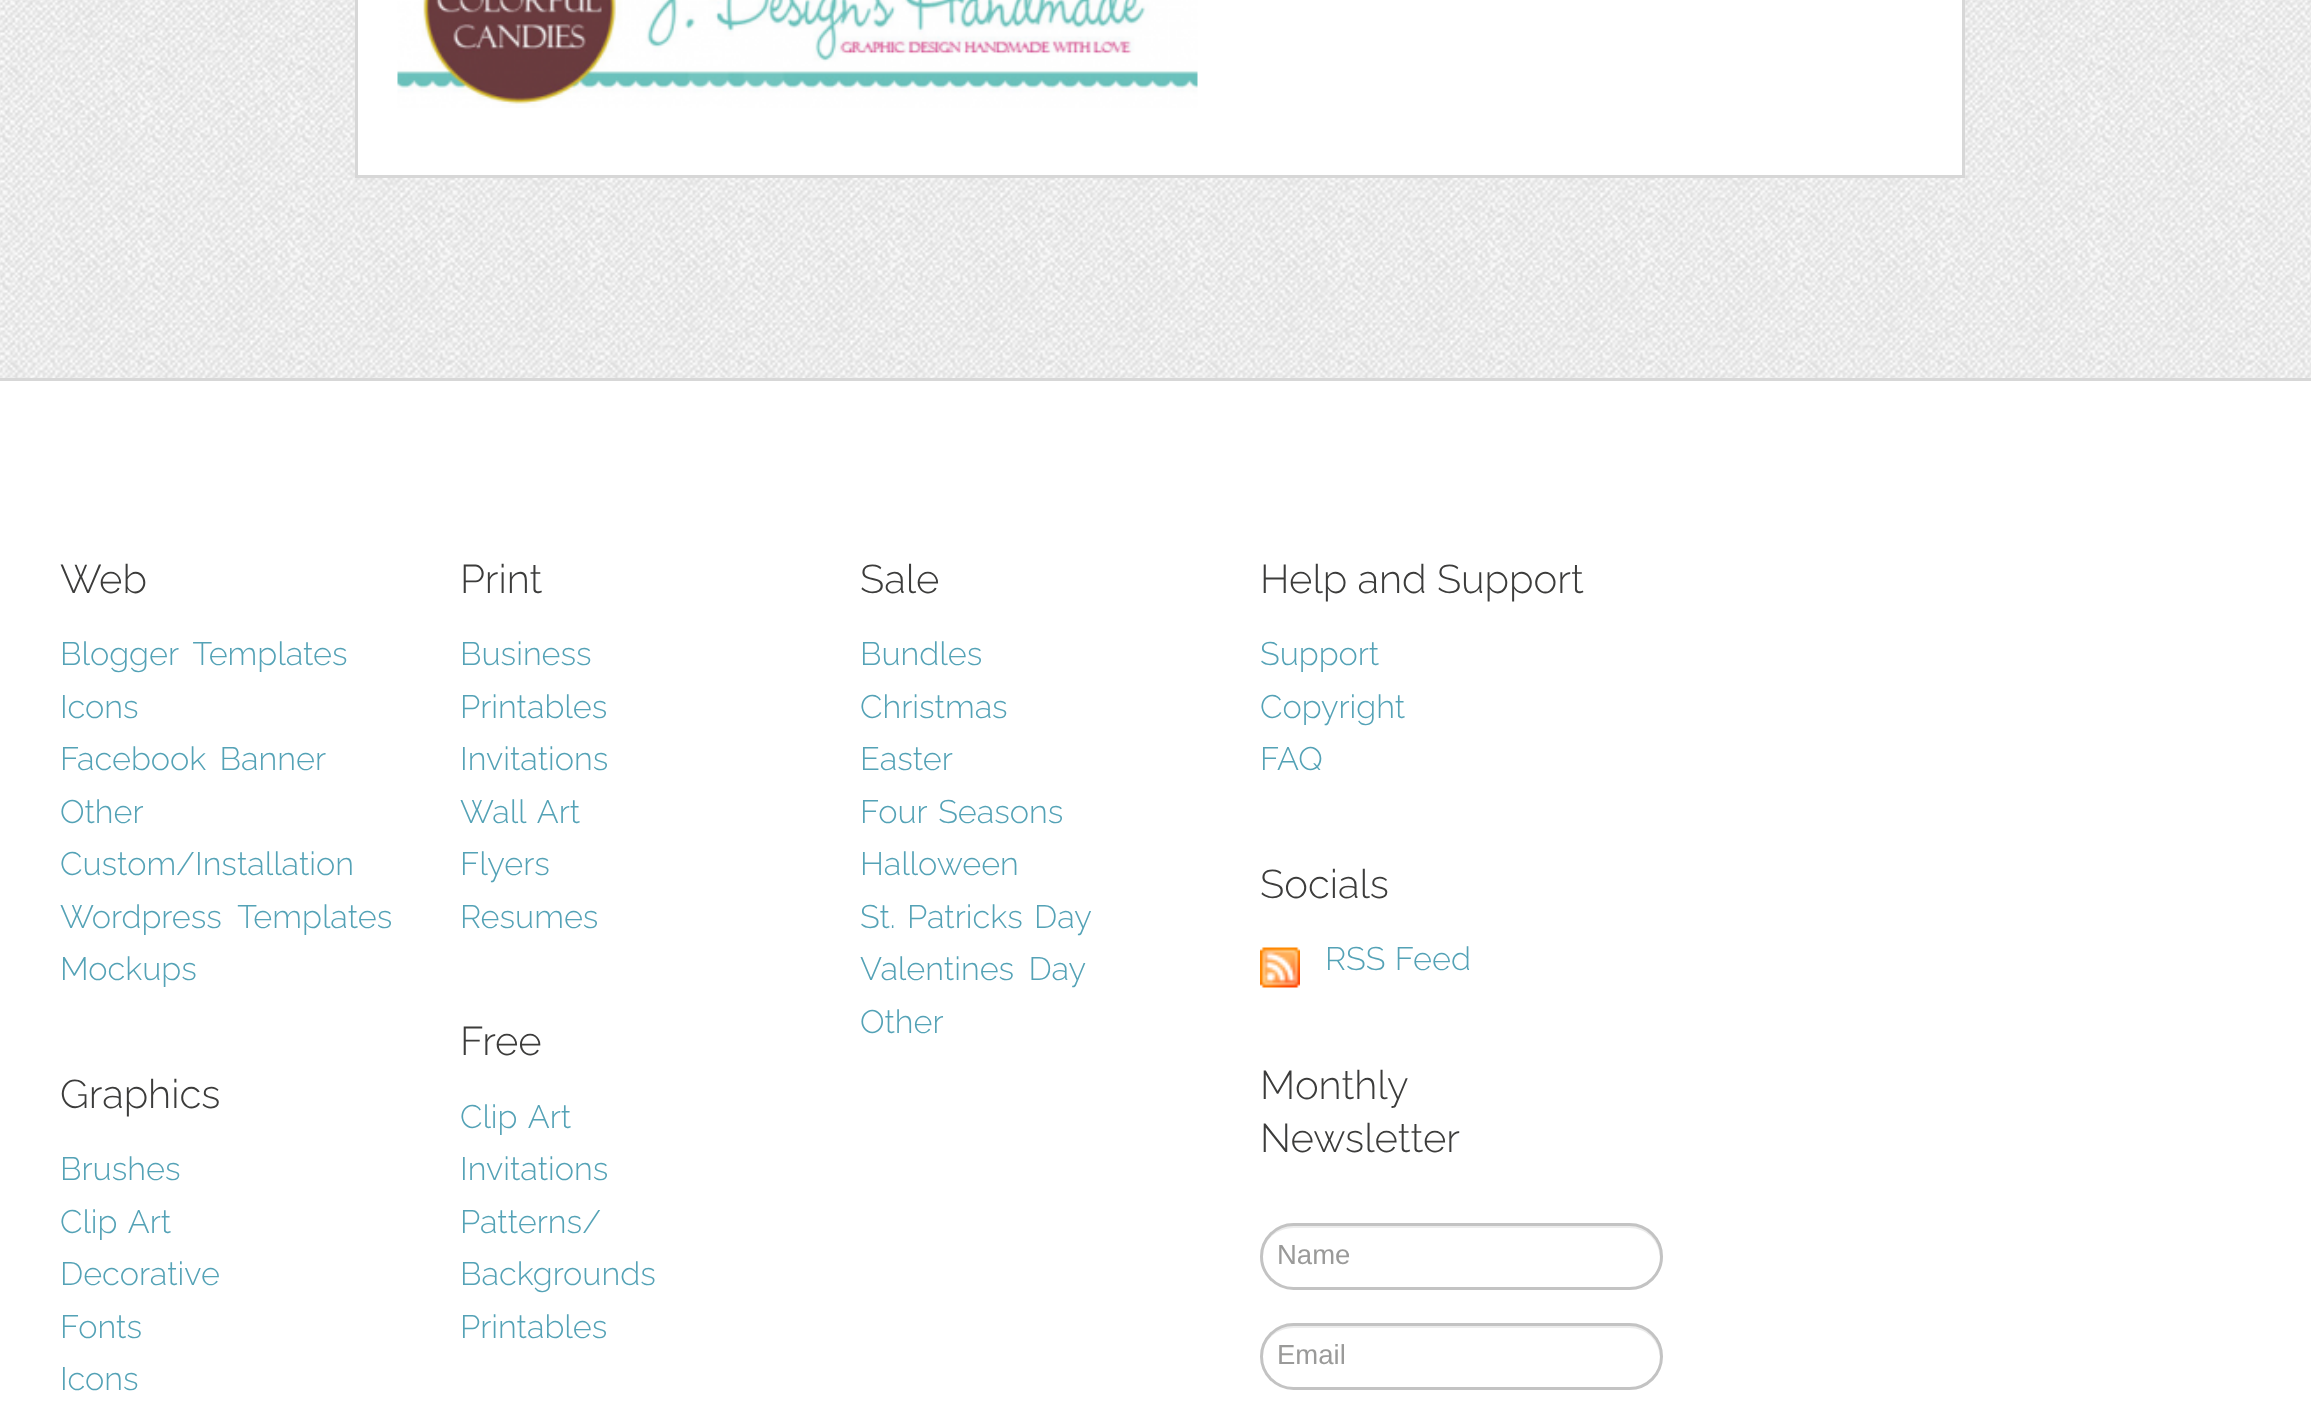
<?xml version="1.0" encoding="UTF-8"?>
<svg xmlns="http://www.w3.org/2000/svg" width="2311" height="1421">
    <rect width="100%" height="100%" fill="#FFFFFF"/>
    <image x="0" y="0" width="2311" height="378" href="img_01.png"/>
    <rect x="356.5" y="-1.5" width="1607" height="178" fill="#FFFFFF" stroke="#D7D7D7" stroke-width="3"/>
    <image x="397" y="0" width="801" height="108" href="img_02.png"/>
    <rect x="0" y="378" width="2311" height="3" fill="#D7D7D7"/>
    <text x="60" y="593" font-family="Raleway" font-size="40" font-weight="300" fill="#3C3C3B">Web</text>
    <text font-family="Raleway" font-size="32.5" font-weight="300" fill="#54A2B6">
        <tspan x="60" y="665" word-spacing="7">Blogger Templates</tspan>
        <tspan x="60" y="718">Icons</tspan>
        <tspan x="60" y="770" word-spacing="5">Facebook Banner</tspan>
        <tspan x="60" y="823">Other</tspan>
        <tspan x="60" y="875">Custom/Installation</tspan>
        <tspan x="60" y="928" word-spacing="8">Wordpress Templates</tspan>
        <tspan x="60" y="980">Mockups</tspan>
    </text>
    <text x="60" y="1108" font-family="Raleway" font-size="40" font-weight="300" fill="#3C3C3B">Graphics</text>
    <text font-family="Raleway" font-size="32.5" font-weight="300" fill="#54A2B6">
        <tspan x="60" y="1180">Brushes</tspan>
        <tspan x="60" y="1233" word-spacing="3">Clip Art</tspan>
        <tspan x="60" y="1285">Decorative</tspan>
        <tspan x="60" y="1338">Fonts</tspan>
        <tspan x="60" y="1390">Icons</tspan>
    </text>
    <text x="460" y="593" font-family="Raleway" font-size="40" font-weight="300" fill="#3C3C3B">Print</text>
    <text font-family="Raleway" font-size="32.5" font-weight="300" fill="#54A2B6">
        <tspan x="460" y="665">Business</tspan>
        <tspan x="460" y="718">Printables</tspan>
        <tspan x="460" y="770">Invitations</tspan>
        <tspan x="460" y="823" word-spacing="4">Wall Art</tspan>
        <tspan x="460" y="875">Flyers</tspan>
        <tspan x="460" y="928">Resumes</tspan>
    </text>
    <text x="460" y="1055" font-family="Raleway" font-size="40" font-weight="300" fill="#3C3C3B">Free</text>
    <text font-family="Raleway" font-size="32.5" font-weight="300" fill="#54A2B6">
        <tspan x="460" y="1128" word-spacing="3">Clip Art</tspan>
        <tspan x="460" y="1180">Invitations</tspan>
        <tspan x="460" y="1233">Patterns/</tspan>
        <tspan x="460" y="1285">Backgrounds</tspan>
        <tspan x="460" y="1338">Printables</tspan>
    </text>
    <text x="860" y="593" font-family="Raleway" font-size="40" font-weight="300" fill="#3C3C3B">Sale</text>
    <text font-family="Raleway" font-size="32.5" font-weight="300" fill="#54A2B6">
        <tspan x="860" y="665">Bundles</tspan>
        <tspan x="860" y="718">Christmas</tspan>
        <tspan x="860" y="770">Easter</tspan>
        <tspan x="860" y="823" word-spacing="3">Four Seasons</tspan>
        <tspan x="860" y="875">Halloween</tspan>
        <tspan x="860" y="928" word-spacing="3">St. Patricks Day</tspan>
        <tspan x="860" y="980" word-spacing="6">Valentines Day</tspan>
        <tspan x="860" y="1033">Other</tspan>
    </text>
    <text x="1260" y="593" font-family="Raleway" font-size="40" font-weight="300" fill="#3C3C3B">Help and Support</text>
    <text font-family="Raleway" font-size="32.5" font-weight="300" fill="#54A2B6">
        <tspan x="1260" y="665">Support</tspan>
        <tspan x="1260" y="718">Copyright</tspan>
        <tspan x="1260" y="770">FAQ</tspan>
    </text>
    <text x="1260" y="898" font-family="Raleway" font-size="40" font-weight="300" fill="#3C3C3B">Socials</text>
    <image x="1260" y="947" width="40" height="41" href="img_03.png"/>
    <text x="1325" y="970" word-spacing="1" font-family="Raleway" font-size="32.5" font-weight="300" fill="#54A2B6">RSS Feed</text>
    <text font-family="Raleway" font-size="40" font-weight="300" fill="#3C3C3B">
        <tspan x="1260" y="1099">Monthly</tspan>
        <tspan x="1260" y="1152">Newsletter</tspan>
    </text>
    <path d="M 1294 1228 H 1629 C 1646 1228 1659 1240 1660 1258 V 1256 C 1660 1239 1646 1225 1628 1225 H 1294 C 1281 1225 1270 1233 1265 1245 C 1270 1235 1281 1228 1294 1228 Z" fill="#ECECEC"/>
    <rect x="1261.5" y="1224.5" width="400" height="64" rx="32" fill="none" stroke="#C3C3C3" stroke-width="3"/>
    <text x="1277" y="1264" font-family="Liberation Sans" font-size="27.5" fill="#9A9A99">Name</text>
    <path d="M 1294 1328 H 1629 C 1646 1328 1659 1340 1660 1358 V 1356 C 1660 1339 1646 1325 1628 1325 H 1294 C 1281 1325 1270 1333 1265 1345 C 1270 1335 1281 1328 1294 1328 Z" fill="#ECECEC"/>
    <rect x="1261.5" y="1324.5" width="400" height="64" rx="32" fill="none" stroke="#C3C3C3" stroke-width="3"/>
    <text x="1277" y="1364" font-family="Liberation Sans" font-size="27.5" fill="#9A9A99">Email</text>
</svg>
